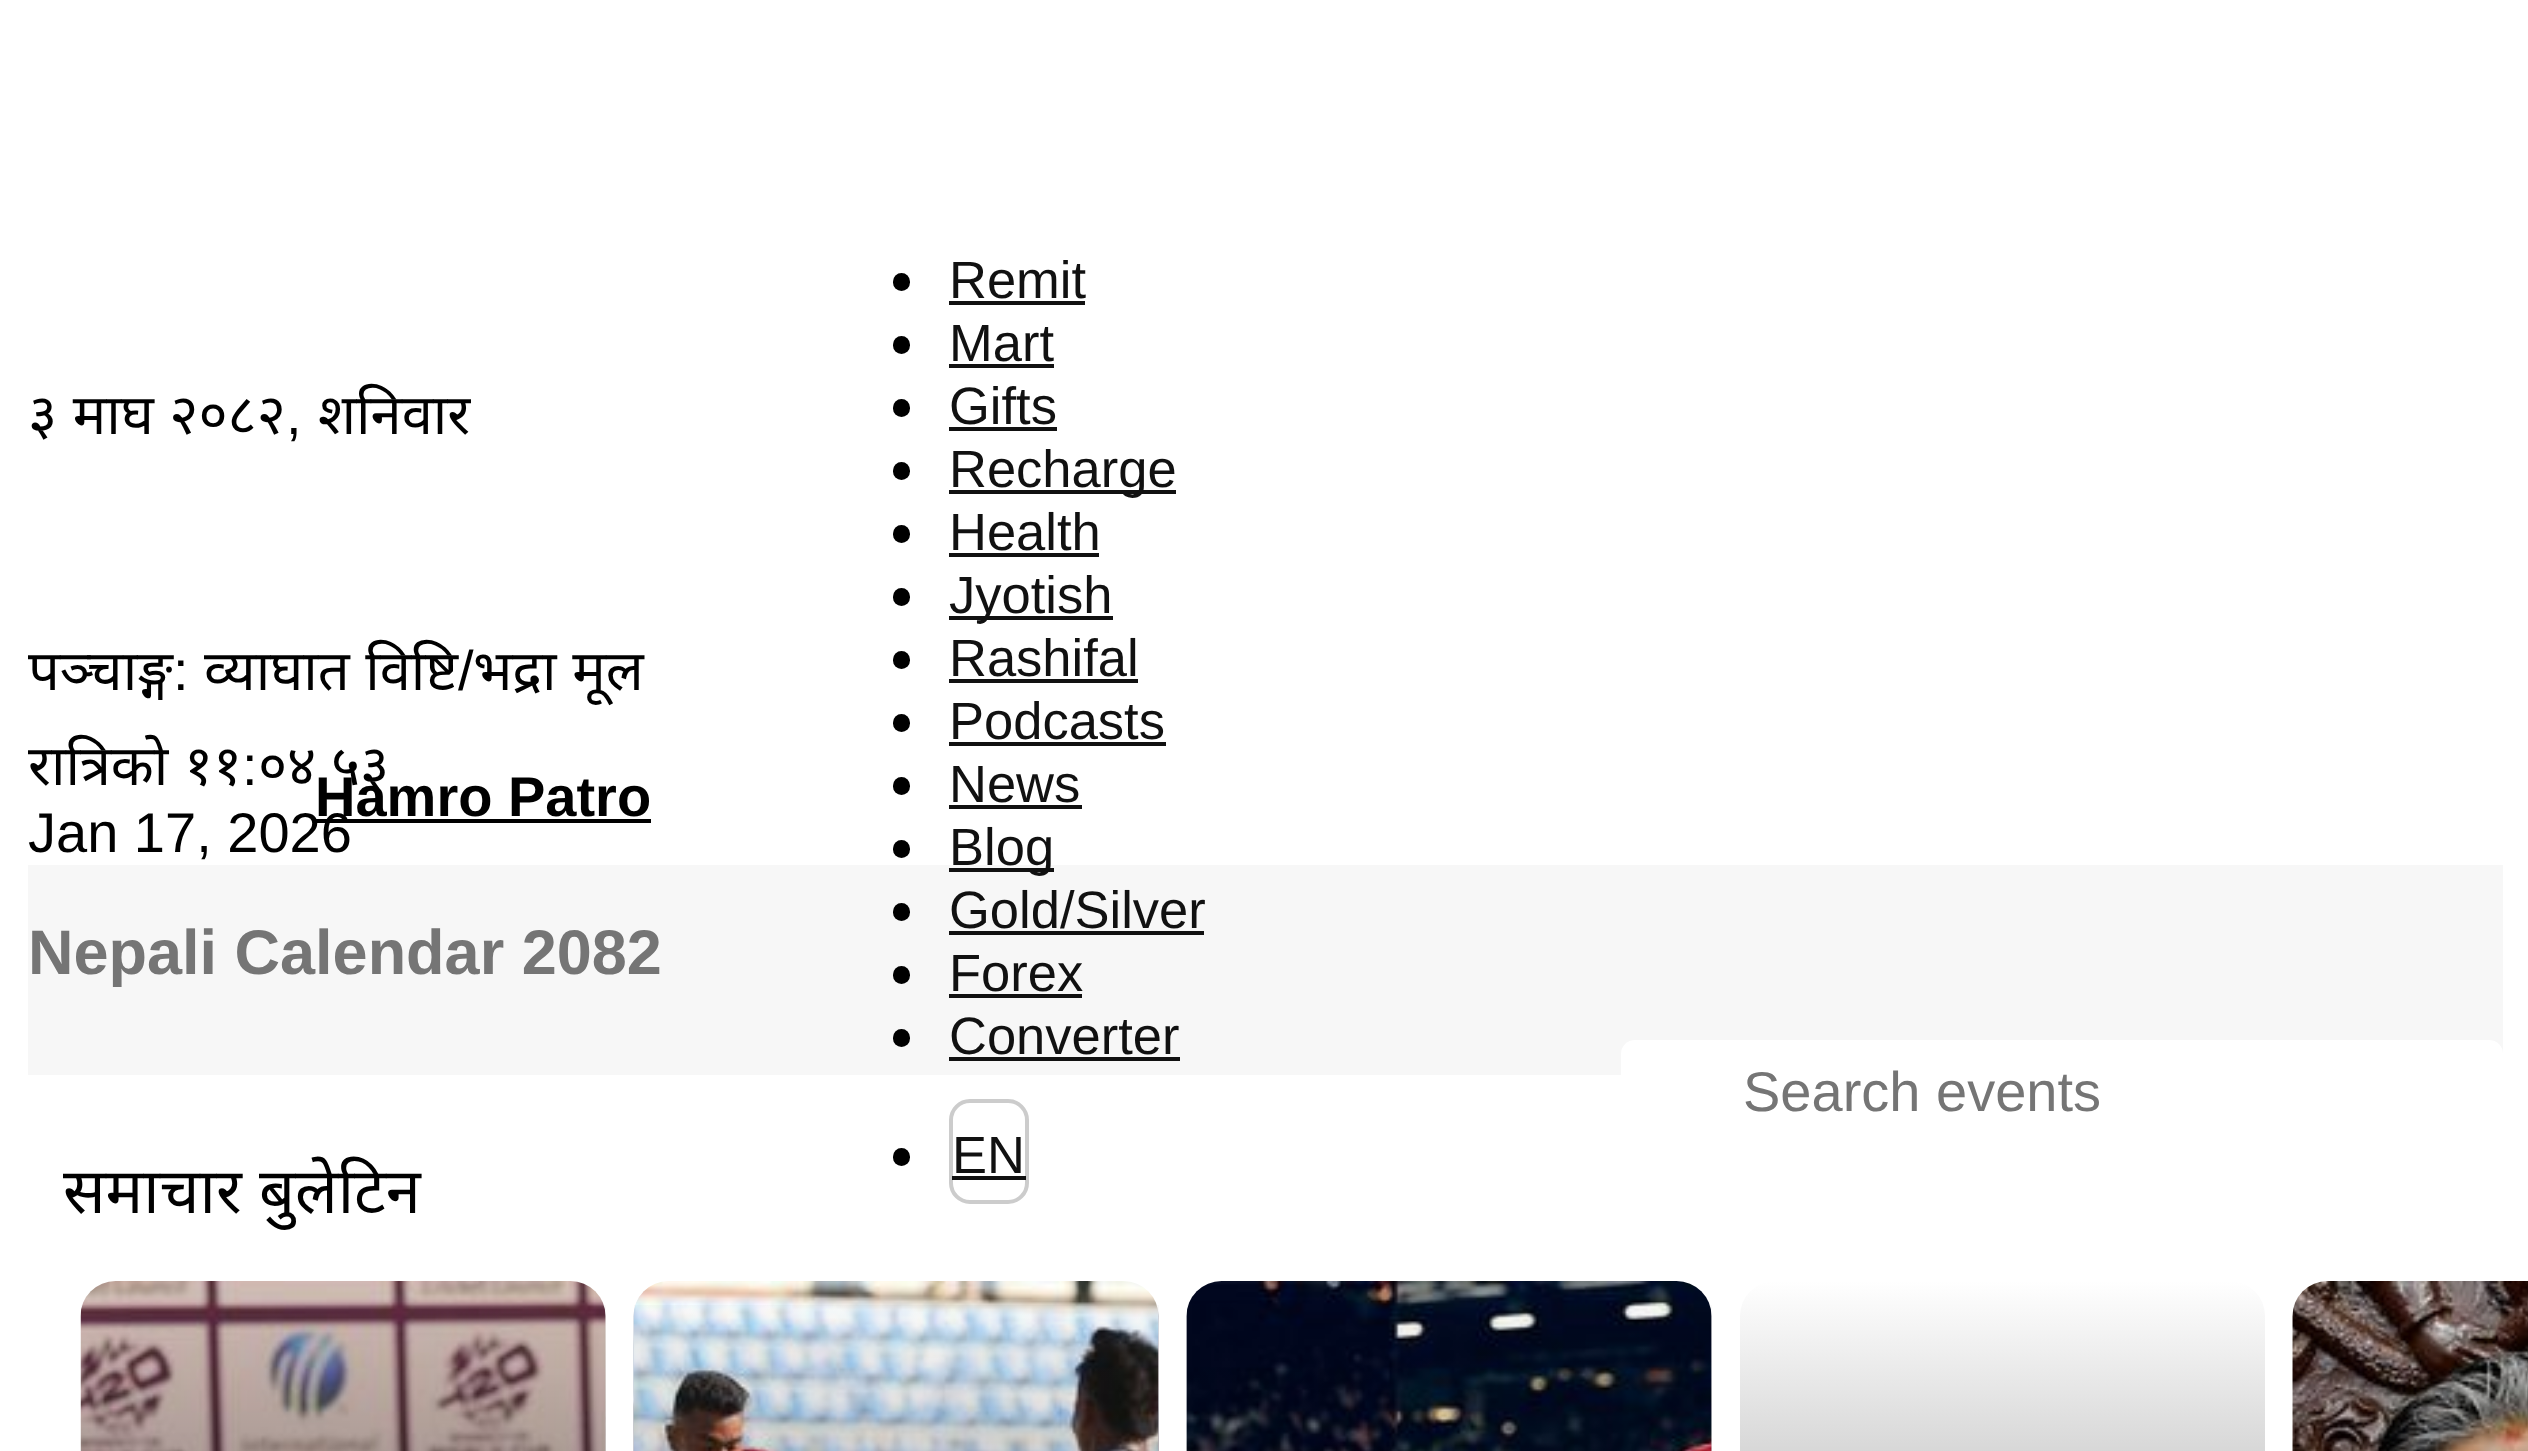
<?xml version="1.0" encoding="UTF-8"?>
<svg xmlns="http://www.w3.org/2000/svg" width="2528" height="1451">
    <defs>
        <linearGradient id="g1" gradientUnits="userSpaceOnUse" x1="343" y1="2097" x2="343" y2="1281"><stop offset="0.1" stop-color="#000000" stop-opacity="0.67"/><stop offset="1" stop-color="#000000" stop-opacity="0"/></linearGradient>
        <linearGradient id="g2" gradientUnits="userSpaceOnUse" x1="896" y1="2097" x2="896" y2="1281"><stop offset="0.1" stop-color="#000000" stop-opacity="0.67"/><stop offset="1" stop-color="#000000" stop-opacity="0"/></linearGradient>
        <linearGradient id="g3" gradientUnits="userSpaceOnUse" x1="1449" y1="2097" x2="1449" y2="1281"><stop offset="0.1" stop-color="#000000" stop-opacity="0.67"/><stop offset="1" stop-color="#000000" stop-opacity="0"/></linearGradient>
        <linearGradient id="g4" gradientUnits="userSpaceOnUse" x1="2002" y1="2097" x2="2002" y2="1281"><stop offset="0.1" stop-color="#545454"/><stop offset="1" stop-color="#FFFFFF"/></linearGradient>
        <linearGradient id="g5" gradientUnits="userSpaceOnUse" x1="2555" y1="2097" x2="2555" y2="1281"><stop offset="0.1" stop-color="#000000" stop-opacity="0.67"/><stop offset="1" stop-color="#000000" stop-opacity="0"/></linearGradient>
    </defs>
    <rect width="100%" height="100%" fill="#FFFFFF"/>
    <text x="315" y="816" font-family="Liberation Sans" font-size="56" font-weight="700" fill="#000000">Hamro Patro</text>
    <rect x="315" y="819" width="336" height="4" fill="#000000"/>
    <rect x="893" y="273" width="17" height="18" rx="8.5" fill="#000000"/>
    <text x="949" y="298" font-family="Liberation Sans" font-size="52.5" fill="#111111">Remit</text>
    <rect x="949" y="301" width="136" height="4" fill="#111111"/>
    <rect x="893" y="336" width="17" height="18" rx="8.5" fill="#000000"/>
    <text x="949" y="361" font-family="Liberation Sans" font-size="52.5" fill="#111111">Mart</text>
    <rect x="949" y="364" width="105" height="4" fill="#111111"/>
    <rect x="893" y="399" width="17" height="18" rx="8.5" fill="#000000"/>
    <text x="949" y="424" font-family="Liberation Sans" font-size="52.5" fill="#111111">Gifts</text>
    <rect x="949" y="427" width="108" height="4" fill="#111111"/>
    <rect x="893" y="462" width="17" height="18" rx="8.5" fill="#000000"/>
    <rect x="949" y="490" width="227" height="4" fill="#111111"/>
    <text x="949" y="487" font-family="Liberation Sans" font-size="52.5" fill="#111111">Recharge</text>
    <rect x="893" y="525" width="17" height="18" rx="8.5" fill="#000000"/>
    <text x="949" y="550" font-family="Liberation Sans" font-size="52.5" fill="#111111">Health</text>
    <rect x="949" y="553" width="150" height="4" fill="#111111"/>
    <rect x="893" y="588" width="17" height="18" rx="8.5" fill="#000000"/>
    <rect x="949" y="616" width="164" height="4" fill="#111111"/>
    <text x="949" y="613" font-family="Liberation Sans" font-size="52.5" fill="#111111">Jyotish</text>
    <rect x="893" y="651" width="17" height="18" rx="8.5" fill="#000000"/>
    <text x="949" y="676" font-family="Liberation Sans" font-size="52.5" fill="#111111">Rashifal</text>
    <rect x="949" y="679" width="189" height="4" fill="#111111"/>
    <rect x="893" y="714" width="17" height="18" rx="8.5" fill="#000000"/>
    <text x="949" y="739" font-family="Liberation Sans" font-size="52.5" fill="#111111">Podcasts</text>
    <rect x="949" y="742" width="217" height="4" fill="#111111"/>
    <rect x="893" y="777" width="17" height="18" rx="8.5" fill="#000000"/>
    <text x="949" y="802" font-family="Liberation Sans" font-size="52.5" fill="#111111">News</text>
    <rect x="949" y="805" width="133" height="4" fill="#111111"/>
    <rect x="893" y="840" width="17" height="18" rx="8.5" fill="#000000"/>
    <rect x="28" y="865" width="2475" height="210" fill="#F7F7F7"/>
    <rect x="949" y="868" width="105" height="4" fill="#111111"/>
    <text x="949" y="865" font-family="Liberation Sans" font-size="52.5" fill="#111111">Blog</text>
    <rect x="893" y="903" width="17" height="18" rx="8.5" fill="#000000"/>
    <text x="949" y="928" font-family="Liberation Sans" font-size="52.5" fill="#111111">Gold/Silver</text>
    <rect x="949" y="931" width="255" height="4" fill="#111111"/>
    <rect x="893" y="966" width="17" height="18" rx="8.5" fill="#000000"/>
    <text x="949" y="991" font-family="Liberation Sans" font-size="52.5" fill="#111111">Forex</text>
    <rect x="949" y="994" width="133" height="4" fill="#111111"/>
    <rect x="893" y="1029" width="17" height="18" rx="8.5" fill="#000000"/>
    <text x="949" y="1054" font-family="Liberation Sans" font-size="52.5" fill="#111111">Converter</text>
    <rect x="949" y="1057" width="231" height="4" fill="#111111"/>
    <rect x="951" y="1101" width="76" height="101" rx="19" fill="none" stroke="#CCCCCC" stroke-width="4"/>
    <rect x="893" y="1148" width="17" height="18" rx="8.5" fill="#000000"/>
    <text x="952" y="1173" font-family="Liberation Sans" font-size="52.5" fill="#111111">EN</text>
    <rect x="952" y="1176" width="74" height="4" fill="#111111"/>
    <text x="28" y="434" word-spacing="1" font-family="Noto Sans" font-size="56" fill="#000000">३ माघ २०८२</text>
    <text x="286" y="434" font-family="Liberation Sans" font-size="56" fill="#000000">,</text>
    <text x="318" y="434" font-family="Noto Sans" font-size="56" fill="#000000">शनिवार</text>
    <text x="28" y="690" font-family="Noto Sans" font-size="56" fill="#000000">पञ्चाङ्ग</text>
    <text x="173" y="690" font-family="Liberation Sans" font-size="56" fill="#000000">:</text>
    <text x="204" y="690" word-spacing="1" font-family="Noto Sans" font-size="56" fill="#000000">व्याघात विष्टि</text>
    <text x="458" y="690" font-family="Liberation Sans" font-size="56" fill="#000000">/</text>
    <text x="473" y="690" word-spacing="1" font-family="Noto Sans" font-size="56" fill="#000000">भद्रा मूल</text>
    <text x="28" y="785" word-spacing="1" font-family="Noto Sans" font-size="56" fill="#000000">रात्रिको ११</text>
    <text x="242" y="785" font-family="Liberation Sans" font-size="56" fill="#000000">:</text>
    <text x="258" y="785" font-family="Noto Sans" font-size="56" fill="#000000">०४</text>
    <text x="331" y="785" font-family="Noto Sans" font-size="56" fill="#000000">५३</text>
    <text x="28" y="852" font-family="Liberation Sans" font-size="56" fill="#000000">Jan 17, 2026</text>
    <text x="28" y="974" font-family="Liberation Sans" font-size="63" font-weight="700" fill="#757575">Nepali Calendar 2082</text>
    <rect x="1621" y="1040" width="882" height="105" rx="14" fill="#FFFFFF"/>
    <text x="1743" y="1111" font-family="Liberation Sans" font-size="56" fill="#757575">Search events</text>
    <text x="63" y="1213" word-spacing="1" font-family="Noto Sans" font-size="63" fill="#000000">समाचार बुलेटिन</text>
    <image x="80" y="1281" width="526" height="170" href="img_01.png"/>
    <rect x="81" y="1305" width="525" height="146" fill="url(#g1)"/>
    <image x="633" y="1281" width="526" height="170" href="img_02.png"/>
    <rect x="634" y="1305" width="525" height="146" fill="url(#g2)"/>
    <image x="1186" y="1281" width="526" height="170" href="img_03.png"/>
    <rect x="1187" y="1305" width="525" height="146" fill="url(#g3)"/>
    <rect x="1740" y="1281" width="525" height="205" rx="35" fill="url(#g4)"/>
    <image x="2292" y="1281" width="236" height="170" href="img_04.png"/>
    <rect x="2293" y="1305" width="235" height="146" fill="url(#g5)"/>
</svg>
